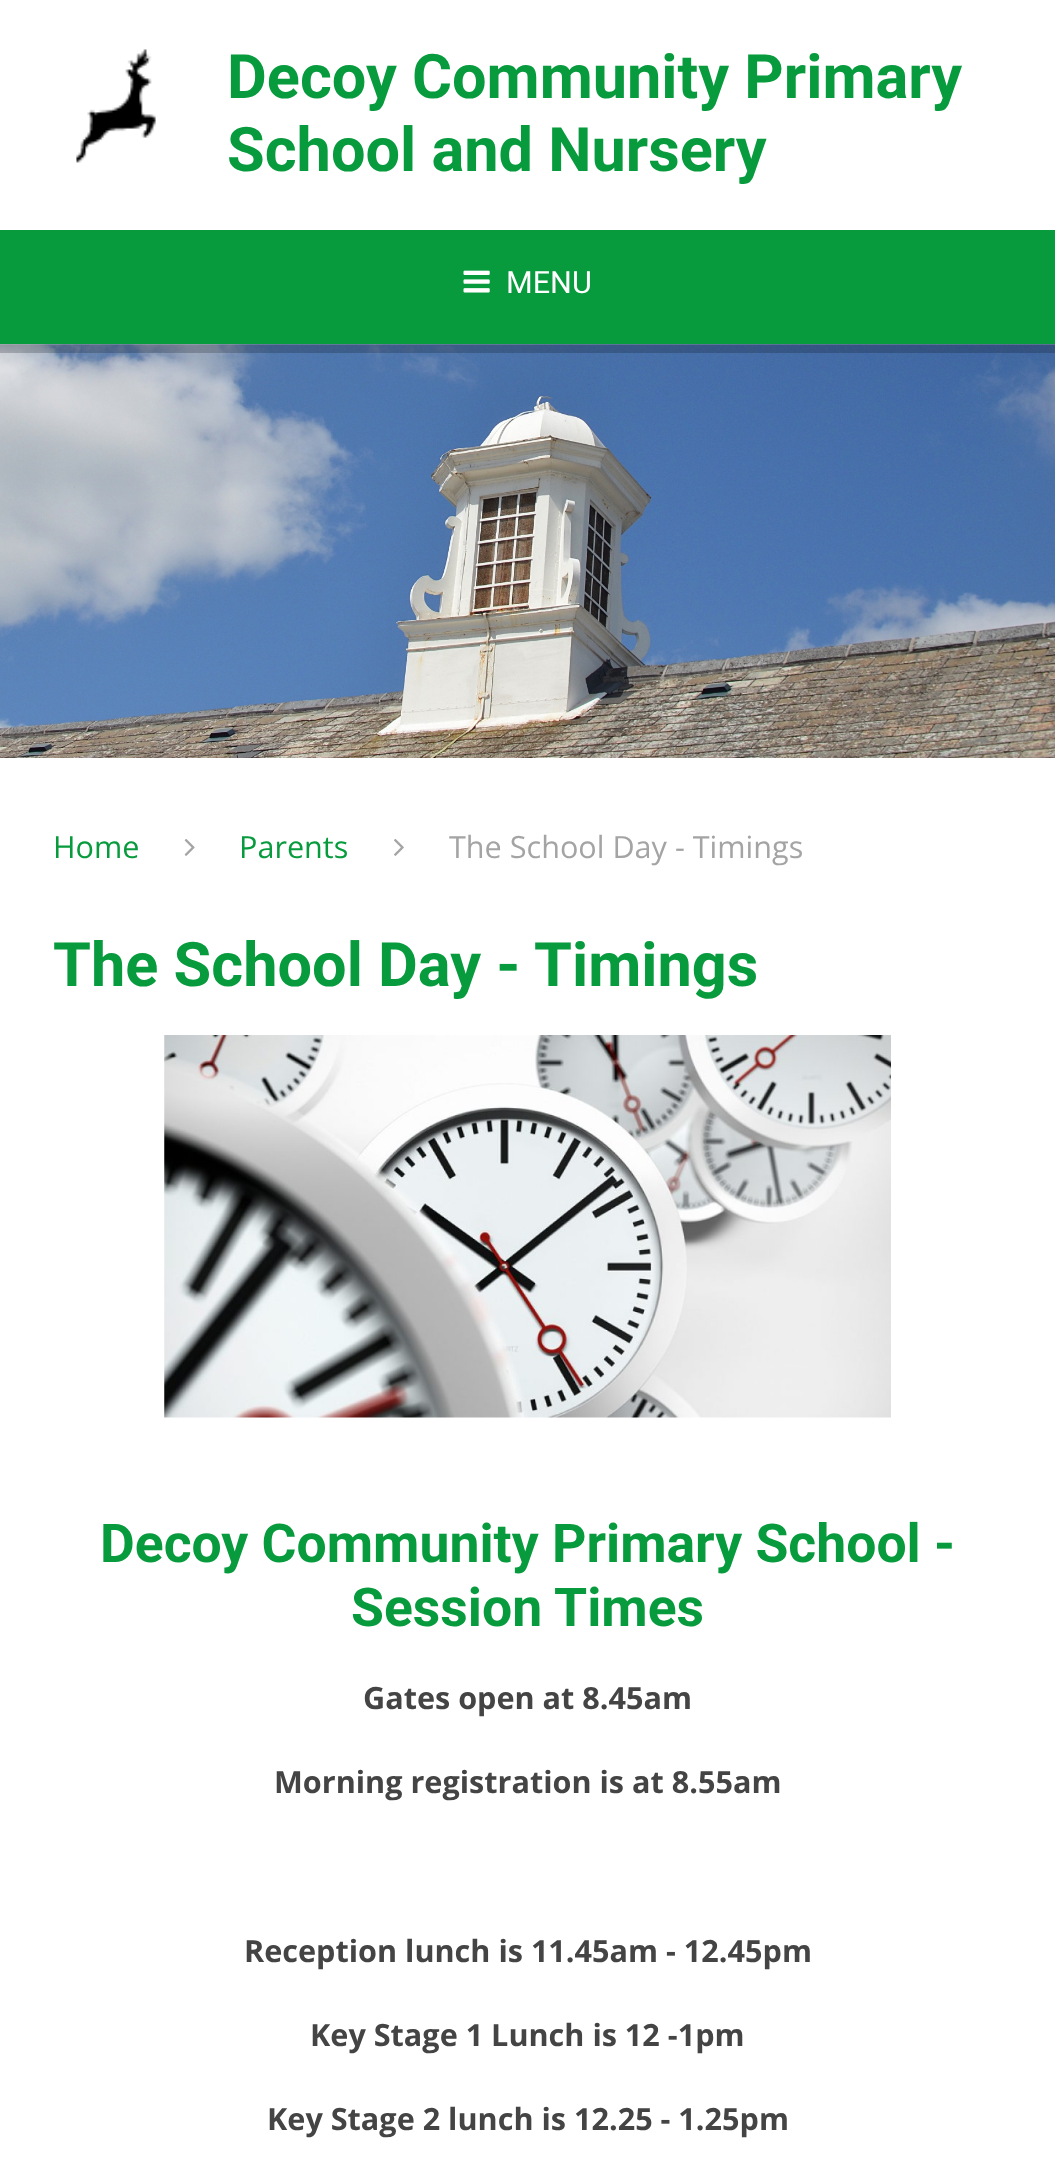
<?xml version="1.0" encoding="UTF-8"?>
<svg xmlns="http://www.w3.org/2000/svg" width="1055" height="2172">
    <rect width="100%" height="100%" fill="#FFFFFF"/>
    <image x="76" y="49" width="80" height="114" href="img_01.png"/>
    <text font-family="Roboto" font-size="61.25" font-weight="700" fill="#089B3E">
        <tspan x="227" y="98">Decoy Community Primary</tspan>
        <tspan x="227" y="171">School and Nursery</tspan>
    </text>
    <image x="0" y="344" width="1055" height="414" href="img_03.png"/>
    <rect x="0" y="344" width="1055" height="9" fill="#000000" fill-opacity="0.2"/>
    <rect x="0" y="230" width="1055" height="114" fill="#089B3E"/>
    <image x="463" y="270" width="27" height="23" href="img_02.png"/>
    <text x="506" y="293" font-family="Roboto" font-size="30.6" fill="#FFFFFF">MENU</text>
    <text x="53" y="858" font-family="Open Sans" font-size="30.6" fill="#089B3E">Home</text>
    <image x="184" y="839" width="11" height="17" href="img_04.png"/>
    <text x="239" y="858" font-family="Open Sans" font-size="30.6" fill="#089B3E">Parents</text>
    <image x="394" y="839" width="10" height="17" href="img_05.png"/>
    <text x="449" y="858" font-family="Open Sans" font-size="30.6" fill="#A4A4A4">The School Day - Timings</text>
    <text x="53" y="986" font-family="Roboto" font-size="61.25" font-weight="700" fill="#089B3E">The School Day - Timings</text>
    <image x="164" y="1035" width="727" height="383" href="img_06.png"/>
    <text x="100" y="1562" font-family="Roboto" font-size="53.5" font-weight="700" fill="#089B3E">Decoy Community Primary School -</text>
    <text x="351" y="1626" font-family="Roboto" font-size="53.5" font-weight="700" fill="#089B3E">Session Times</text>
    <text x="363" y="1709" font-family="Open Sans" font-size="30.6" font-weight="700" fill="#444444">Gates open at 8.45am</text>
    <text x="274" y="1793" font-family="Open Sans" font-size="30.6" font-weight="700" fill="#444444">Morning registration is at 8.55am</text>
    <text x="244" y="1962" font-family="Open Sans" font-size="30.6" font-weight="700" fill="#444444">Reception lunch is 11.45am - 12.45pm</text>
    <text x="310" y="2046" font-family="Open Sans" font-size="30.6" font-weight="700" fill="#444444">Key Stage 1 Lunch is 12 -1pm</text>
    <text x="267" y="2130" font-family="Open Sans" font-size="30.6" font-weight="700" fill="#444444">Key Stage 2 lunch is 12.25 - 1.25pm</text>
</svg>
